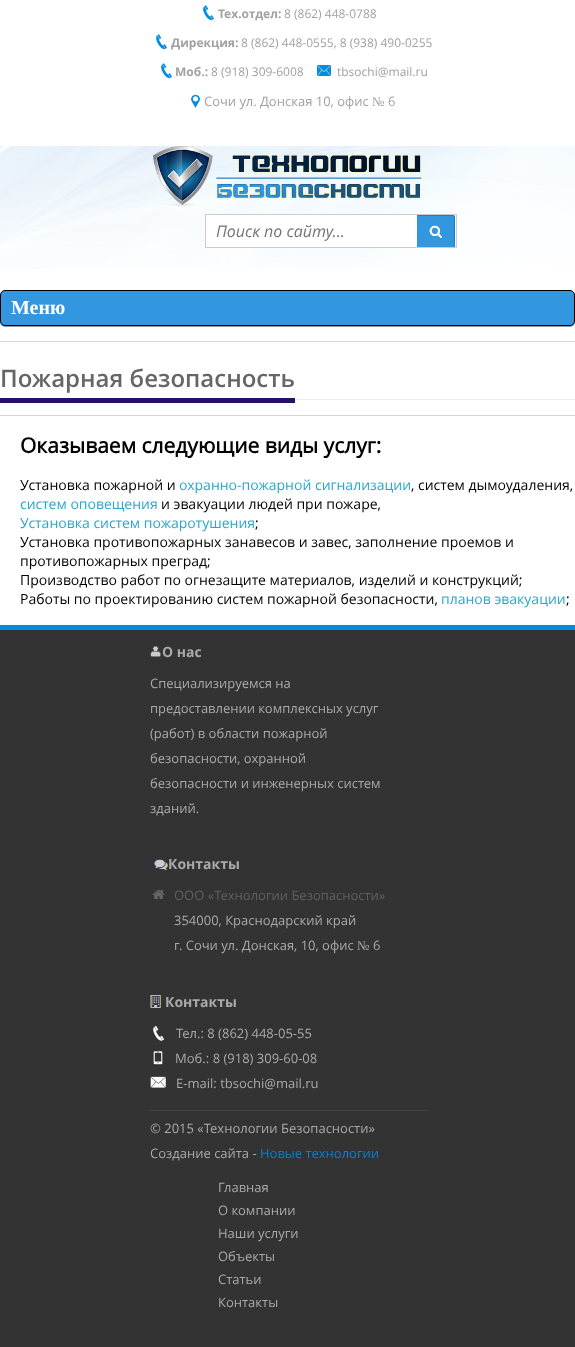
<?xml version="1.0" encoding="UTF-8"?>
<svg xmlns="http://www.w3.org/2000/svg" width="575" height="1347">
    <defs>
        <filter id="blur1" x="-50%" y="-200%" width="200%" height="500%"><feGaussianBlur stdDeviation="0.5"/></filter>
    </defs>
    <rect width="100%" height="100%" fill="#FFFFFF"/>
    <image x="0" y="146" width="575" height="123" href="img_01.png"/>
    <image x="203" y="5" width="11" height="16" href="img_02.png"/>
    <text x="218" y="18" font-family="Open Sans" font-size="12" font-weight="700" fill="#A1A1A1">Тех.отдел:</text>
    <text x="284" y="18" font-family="Open Sans" font-size="12" fill="#A1A1A1">8 (862) 448-0788</text>
    <image x="156" y="34" width="11" height="16" href="img_02.png"/>
    <text x="171" y="47" font-family="Open Sans" font-size="12" font-weight="700" fill="#A1A1A1">Дирекция:</text>
    <text x="241" y="47" font-family="Open Sans" font-size="12" fill="#A1A1A1">8 (862) 448-0555, 8 (938) 490-0255</text>
    <image x="161" y="63" width="11" height="16" href="img_02.png"/>
    <text x="175" y="76" font-family="Open Sans" font-size="12" font-weight="700" fill="#A1A1A1">Моб.:</text>
    <text x="211" y="76" font-family="Open Sans" font-size="12" fill="#A1A1A1">8 (918) 309-6008</text>
    <image x="317" y="65" width="14" height="11" href="img_03.png"/>
    <text x="337" y="76" font-family="Open Sans" font-size="12" fill="#A1A1A1">tbsochi@mail.ru</text>
    <image x="191" y="94" width="9" height="14" href="img_04.png"/>
    <text x="204" y="106" font-family="Open Sans" font-size="13" fill="#A1A1A1">Сочи ул. Донская 10, офис</text>
    <text x="372" y="106" font-family="Liberation Serif" font-size="13" fill="#A1A1A1">№</text>
    <text x="388" y="106" font-family="Open Sans" font-size="13" fill="#A1A1A1">6</text>
    <image x="153" y="146" width="269" height="60" href="img_05.png"/>
    <rect x="206" y="215" width="250" height="32" fill="#FFFFFF"/>
    <image x="417" y="215" width="38" height="32" href="img_06.png"/>
    <rect x="205.5" y="214.5" width="251" height="33" fill="none" stroke="#CCCCCC"/>
    <text x="216" y="237" font-family="Open Sans" font-size="16" font-style="italic" fill="#757575">Поиск по сайту...</text>
    <rect x="0" y="291" width="575" height="36" rx="5" fill="#000000" fill-opacity="0.4" filter="url(#blur1)"/>
    <rect x="0.5" y="290.5" width="574" height="35" rx="4.5" fill="#3297DE" stroke="#000000"/>
    <text x="11" y="314" font-family="Liberation Serif" font-size="20" font-weight="700" fill="#FFFFFF">Меню</text>
    <rect x="0" y="341" width="575" height="1" fill="#D5D5D5"/>
    <rect x="295" y="399" width="280" height="1" fill="#EEEEEE"/>
    <text x="0" y="387" font-family="Open Sans" font-size="24" font-weight="600" fill="#666666">Пожарная безопасность</text>
    <rect x="0" y="398" width="295" height="5" fill="#271068"/>
    <rect x="0" y="415" width="575" height="1" fill="#D5D5D5"/>
    <text x="20" y="453" font-family="'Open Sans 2'" font-size="21" font-weight="700" fill="#000000">Оказываем следующие виды услуг:</text>
    <text x="20" y="490" font-family="Open Sans" font-size="14" fill="#000000">Установка пожарной и</text>
    <text x="179" y="490" font-family="Open Sans" font-size="14" fill="#2BA6CB">охранно-пожарной сигнализации</text>
    <text x="411" y="490" font-family="Open Sans" font-size="14" fill="#000000">, систем дымоудаления,</text>
    <text x="20" y="509" font-family="Open Sans" font-size="14" fill="#2BA6CB">систем оповещения</text>
    <text x="161" y="509" font-family="Open Sans" font-size="14" fill="#000000">и эвакуации людей при пожаре,</text>
    <text x="20" y="528" font-family="Open Sans" font-size="14" fill="#2BA6CB">Установка систем пожаротушения</text>
    <text x="255" y="528" font-family="Open Sans" font-size="14" fill="#000000">;</text>
    <text font-family="Open Sans" font-size="14" fill="#000000">
        <tspan x="20" y="547">Установка противопожарных занавесов и завес, заполнение проемов и</tspan>
        <tspan x="20" y="566">противопожарных преград;</tspan>
        <tspan x="20" y="585">Производство работ по огнезащите материалов, изделий и конструкций;</tspan>
        <tspan x="20" y="604">Работы по проектированию систем пожарной безопасности,</tspan>
    </text>
    <text x="441" y="604" font-family="Open Sans" font-size="14" fill="#2BA6CB">планов эвакуации</text>
    <text x="566" y="604" font-family="Open Sans" font-size="14" fill="#000000">;</text>
    <rect x="0" y="625" width="575" height="5" fill="#008CE1"/>
    <rect x="0" y="630" width="575" height="717" fill="#333333"/>
    <image x="150" y="646" width="11" height="11" href="img_07.png"/>
    <text x="162" y="657" font-family="Open Sans" font-size="14" font-weight="700" fill="#AAAAAA">О нас</text>
    <text font-family="Open Sans" font-size="13" fill="#AAAAAA">
        <tspan x="150" y="688">Специализируемся на</tspan>
        <tspan x="150" y="713">предоставлении комплексных услуг</tspan>
        <tspan x="150" y="738">(работ) в области пожарной</tspan>
        <tspan x="150" y="763">безопасности, охранной</tspan>
        <tspan x="150" y="788">безопасности и инженерных систем</tspan>
        <tspan x="150" y="813">зданий.</tspan>
    </text>
    <image x="154" y="859" width="14" height="11" href="img_08.png"/>
    <text x="168" y="869" font-family="Open Sans" font-size="14" font-weight="700" fill="#AAAAAA">Контакты</text>
    <image x="152" y="889" width="13" height="10" href="img_09.png"/>
    <text x="174" y="900" font-family="Open Sans" font-size="13" fill="#606060">ООО «Технологии Безопасности»</text>
    <text font-family="Open Sans" font-size="13" fill="#AAAAAA">
        <tspan x="174" y="925">354000, Краснодарский край</tspan>
        <tspan x="174" y="950">г. Сочи ул. Донская, 10, офис</tspan>
    </text>
    <text x="357" y="950" font-family="Liberation Serif" font-size="13" fill="#AAAAAA">№</text>
    <text x="373" y="950" font-family="Open Sans" font-size="13" fill="#AAAAAA">6</text>
    <image x="150" y="995" width="11" height="13" href="img_10.png"/>
    <text x="165" y="1007" font-family="Open Sans" font-size="14" font-weight="700" fill="#AAAAAA">Контакты</text>
    <image x="153" y="1026" width="11" height="15" href="img_11.png"/>
    <text x="176" y="1038" font-family="Open Sans" font-size="13" fill="#AAAAAA">Тел.: 8 (862) 448-05-55</text>
    <image x="153" y="1051" width="10" height="14" href="img_12.png"/>
    <text x="175" y="1063" font-family="Open Sans" font-size="13" fill="#AAAAAA">Моб.: 8 (918) 309-60-08</text>
    <image x="150" y="1076" width="16" height="12" href="img_13.png"/>
    <text x="176" y="1088" font-family="Open Sans" font-size="13" fill="#AAAAAA">E-mail: tbsochi@mail.ru</text>
    <rect x="150" y="1110" width="280" height="1" fill="#424242"/>
    <text font-family="Open Sans" font-size="13" fill="#AAAAAA">
        <tspan x="150" y="1133">© 2015 «Технологии Безопасности»</tspan>
        <tspan x="150" y="1158">Создание сайта -</tspan>
    </text>
    <text x="260" y="1158" font-family="Open Sans" font-size="13" fill="#0682D0">Новые технологии</text>
    <text font-family="Open Sans" font-size="13" fill="#AAAAAA">
        <tspan x="218" y="1192">Главная</tspan>
        <tspan x="218" y="1215">О компании</tspan>
        <tspan x="218" y="1238">Наши услуги</tspan>
        <tspan x="218" y="1261">Объекты</tspan>
        <tspan x="218" y="1284">Статьи</tspan>
        <tspan x="218" y="1307">Контакты</tspan>
    </text>
</svg>
